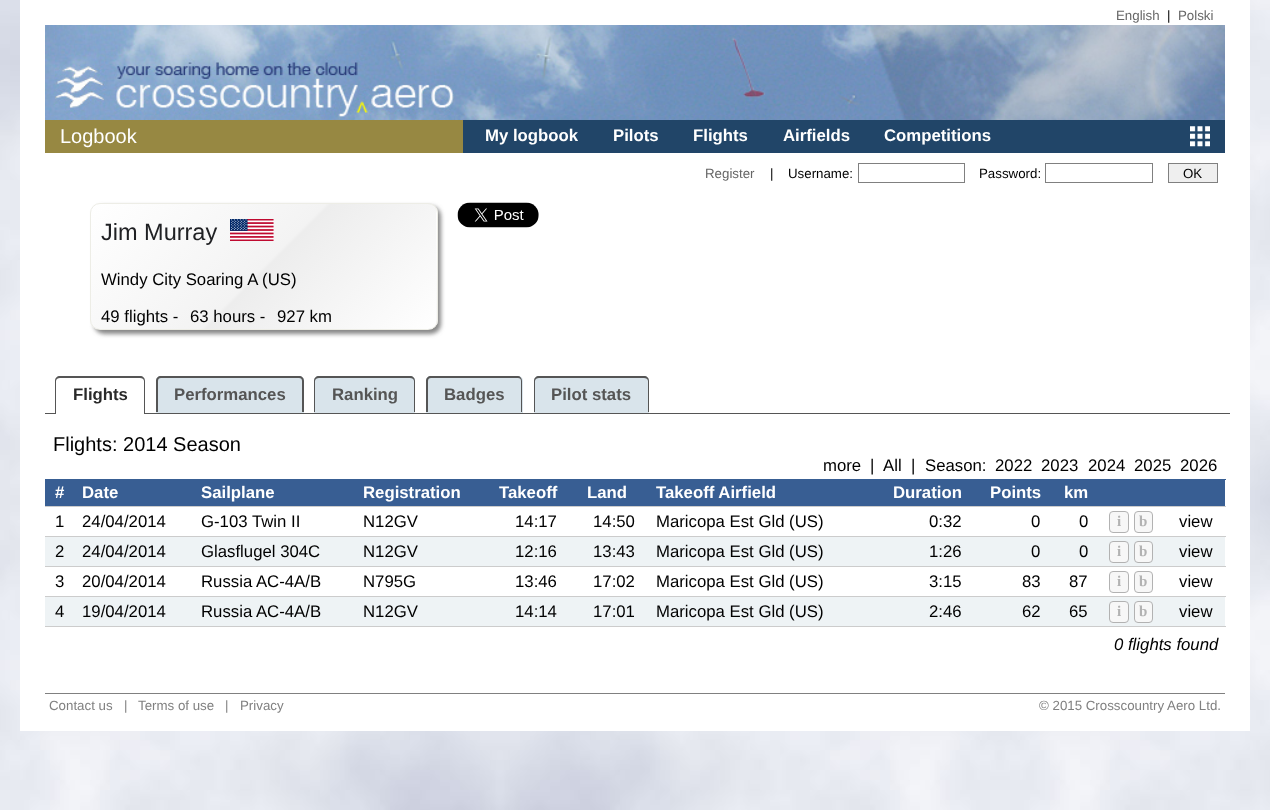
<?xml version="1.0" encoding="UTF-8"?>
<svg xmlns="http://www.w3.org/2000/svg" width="1270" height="810">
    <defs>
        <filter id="blur1" x="-50%" y="-200%" width="200%" height="500%"><feGaussianBlur stdDeviation="2"/></filter>
        <clipPath id="clip1"><rect x="90" y="203" width="348" height="127" rx="10"/></clipPath>
        <linearGradient id="g1" gradientUnits="userSpaceOnUse" x1="146" y1="149" x2="381" y2="384"><stop offset="0" stop-color="#FFFFFF"/><stop offset="0.5" stop-color="#F3F3F3"/><stop offset="0.51" stop-color="#EDEDED"/><stop offset="1" stop-color="#FFFFFF"/></linearGradient>
        <linearGradient id="g2" gradientUnits="userSpaceOnUse" x1="491" y1="149" x2="726" y2="384"><stop offset="0" stop-color="#FFFFFF"/><stop offset="0.5" stop-color="#F3F3F3"/><stop offset="0.51" stop-color="#EDEDED"/><stop offset="1" stop-color="#FFFFFF"/></linearGradient>
    </defs>
    <rect width="100%" height="100%" fill="#FFFFFF"/>
    <image x="0" y="0" width="1270" height="810" href="img_01.png"/>
    <rect x="20" y="0" width="1230" height="731" fill="#FFFFFF"/>
    <text x="1116" y="20" font-family="Liberation Sans" font-size="13.3" fill="#666666">English</text>
    <text x="1167" y="20" font-family="Liberation Sans" font-size="13.3" fill="#000000">|</text>
    <text x="1178" y="20" font-family="Liberation Sans" font-size="13.3" fill="#666666">Polski</text>
    <image x="45" y="25" width="1180" height="95" href="img_02.png"/>
    <rect x="45" y="120" width="418" height="33" fill="#978842"/>
    <text x="60" y="143" font-family="Liberation Sans" font-size="20" fill="#FFFFFF">Logbook</text>
    <rect x="463" y="120" width="762" height="33" fill="#214568"/>
    <text x="485" y="141" font-family="Liberation Sans" font-size="16.75" font-weight="700" fill="#FFFFFF">My logbook</text>
    <text x="613" y="141" font-family="Liberation Sans" font-size="16.75" font-weight="700" fill="#FFFFFF">Pilots</text>
    <text x="693" y="141" font-family="Liberation Sans" font-size="16.75" font-weight="700" fill="#FFFFFF">Flights</text>
    <text x="783" y="141" font-family="Liberation Sans" font-size="16.75" font-weight="700" fill="#FFFFFF">Airfields</text>
    <text x="884" y="141" font-family="Liberation Sans" font-size="16.75" font-weight="700" fill="#FFFFFF">Competitions</text>
    <image x="1190" y="126" width="20" height="21" href="img_03.png"/>
    <text x="705" y="178" font-family="Liberation Sans" font-size="13.3" fill="#666666">Register</text>
    <text x="770" y="178" font-family="Liberation Sans" font-size="13.3" fill="#000000">|</text>
    <text x="788" y="178" font-family="Liberation Sans" font-size="13.3" fill="#000000">Username:</text>
    <rect x="858.5" y="163.5" width="106" height="19" fill="none" stroke="#808080"/>
    <text x="979" y="178" font-family="Liberation Sans" font-size="13.3" fill="#000000">Password:</text>
    <rect x="1045.5" y="163.5" width="107" height="19" fill="none" stroke="#808080"/>
    <rect x="1168.5" y="163.5" width="49" height="19" fill="#EFEFEF" stroke="#808080"/>
    <text x="1183" y="178" font-family="Liberation Sans" font-size="13.3" fill="#000000">OK</text>
    <image x="457" y="202" width="82" height="26" href="img_04.png"/>
    <rect x="94" y="206" width="347" height="128" rx="10" fill="#888888" filter="url(#blur1)"/>
    <g clip-path="url(#clip1)">
        <rect x="91" y="204" width="345" height="125" fill="url(#g1)"/>
        <rect x="436" y="204" width="2" height="125" fill="url(#g2)"/>
    </g>
    <rect x="90.5" y="203.5" width="347" height="126" rx="9.5" fill="none" stroke="#EDEDE6"/>
    <text x="101" y="240" font-family="Liberation Sans" font-size="23.5" fill="#202124">Jim Murray</text>
    <image x="230" y="219" width="44" height="22" href="img_05.png"/>
    <text x="101" y="285" font-family="Liberation Sans" font-size="16.75" fill="#000000">Windy City Soaring A (US)</text>
    <text x="101" y="322" font-family="Liberation Sans" font-size="16.75" fill="#000000">49 flights -</text>
    <text x="190" y="322" font-family="Liberation Sans" font-size="16.75" fill="#000000">63 hours -</text>
    <text x="277" y="322" font-family="Liberation Sans" font-size="16.75" fill="#000000">927 km</text>
    <rect x="45" y="413" width="1185" height="1" fill="#555555"/>
    <path d="M 60 376 H 140 C 143 376 145 378 145 381 V 414 H 55 V 381 C 55 378 57 376 60 376 Z" fill="#FFFFFF"/>
    <path d="M 60 376 H 140 C 143 376 145 378 145 381 V 414 H 55 V 381 C 55 378 57 376 60 376 Z M 60 378 H 140 C 142 378 144 379 144 381 V 414 H 56 V 381 C 56 379 58 378 60 378 Z" fill="#555555" fill-rule="evenodd"/>
    <text x="73" y="400" font-family="Liberation Sans" font-size="16.75" font-weight="700" fill="#292929">Flights</text>
    <path d="M 161 376 H 299 C 302 376 304 378 304 381 V 413 H 156 V 381 C 156 378 158 376 161 376 Z" fill="#D9E4EB"/>
    <path d="M 161 376 H 299 C 302 376 304 378 304 381 V 412 H 156 V 381 C 156 378 158 376 161 376 Z M 161 378 H 299 C 301 378 302 379 302 381 V 412 H 158 V 381 C 158 379 159 378 161 378 Z" fill="#555555" fill-rule="evenodd"/>
    <text x="174" y="400" font-family="Liberation Sans" font-size="16.75" font-weight="700" fill="#555555">Performances</text>
    <path d="M 319 376 H 410 C 413 376 415 378 415 381 V 413 H 314 V 381 C 314 378 316 376 319 376 Z" fill="#D9E4EB"/>
    <path d="M 319 376 H 410 C 413 376 415 378 415 381 V 412 H 314 V 381 C 314 378 316 376 319 376 Z M 319 378 H 410 C 412 378 414 379 414 381 V 412 H 315 V 381 C 315 379 317 378 319 378 Z" fill="#555555" fill-rule="evenodd"/>
    <text x="332" y="400" font-family="Liberation Sans" font-size="16.75" font-weight="700" fill="#555555">Ranking</text>
    <path d="M 431 376 H 518 C 521 376 523 378 523 381 V 413 H 426 V 381 C 426 378 428 376 431 376 Z" fill="#D9E4EB"/>
    <path d="M 431 376 H 518 C 520 376 522 378 522 381 V 412 H 426 V 381 C 426 378 428 376 431 376 Z M 431 378 H 518 C 520 378 521 379 521 381 V 412 H 428 V 381 C 428 379 429 378 431 378 Z" fill="#555555" fill-rule="evenodd"/>
    <text x="444" y="400" font-family="Liberation Sans" font-size="16.75" font-weight="700" fill="#555555">Badges</text>
    <path d="M 539 376 H 644 C 647 376 649 378 649 381 V 413 H 534 V 381 C 534 378 536 376 539 376 Z" fill="#D9E4EB"/>
    <path d="M 539 376 H 644 C 647 376 649 378 649 381 V 412 H 534 V 381 C 534 378 536 376 539 376 Z M 539 378 H 644 C 646 378 648 379 648 381 V 412 H 535 V 381 C 535 379 537 378 539 378 Z" fill="#555555" fill-rule="evenodd"/>
    <text x="551" y="400" font-family="Liberation Sans" font-size="16.75" font-weight="700" fill="#555555">Pilot stats</text>
    <text x="53" y="451" font-family="Liberation Sans" font-size="20" fill="#000000">Flights: 2014 Season</text>
    <text x="823" y="471" font-family="Liberation Sans" font-size="16.75" fill="#000000">more</text>
    <text x="870" y="471" font-family="Liberation Sans" font-size="16.75" fill="#000000">|</text>
    <text x="883" y="471" font-family="Liberation Sans" font-size="16.75" fill="#000000">All</text>
    <text x="911" y="471" font-family="Liberation Sans" font-size="16.75" fill="#000000">|</text>
    <text x="925" y="471" font-family="Liberation Sans" font-size="16.75" fill="#000000">Season:</text>
    <text x="995" y="471" font-family="Liberation Sans" font-size="16.75" fill="#000000">2022</text>
    <text x="1041" y="471" font-family="Liberation Sans" font-size="16.75" fill="#000000">2023</text>
    <text x="1088" y="471" font-family="Liberation Sans" font-size="16.75" fill="#000000">2024</text>
    <text x="1134" y="471" font-family="Liberation Sans" font-size="16.75" fill="#000000">2025</text>
    <text x="1180" y="471" font-family="Liberation Sans" font-size="16.75" fill="#000000">2026</text>
    <rect x="1166" y="480" width="59" height="26" fill="#385E93"/>
    <rect x="1166" y="479" width="60" height="1" fill="#385E93"/>
    <rect x="45" y="506" width="1181" height="1" fill="#CCCCCC"/>
    <rect x="45" y="479" width="1121" height="27" fill="#385E93"/>
    <text x="55" y="498" font-family="Liberation Sans" font-size="16.75" font-weight="700" fill="#FFFFFF">#</text>
    <text x="82" y="498" font-family="Liberation Sans" font-size="16.75" font-weight="700" fill="#FFFFFF">Date</text>
    <text x="201" y="498" font-family="Liberation Sans" font-size="16.75" font-weight="700" fill="#FFFFFF">Sailplane</text>
    <text x="363" y="498" font-family="Liberation Sans" font-size="16.75" font-weight="700" fill="#FFFFFF">Registration</text>
    <text x="499" y="498" font-family="Liberation Sans" font-size="16.75" font-weight="700" fill="#FFFFFF">Takeoff</text>
    <text x="587" y="498" font-family="Liberation Sans" font-size="16.75" font-weight="700" fill="#FFFFFF">Land</text>
    <text x="656" y="498" font-family="Liberation Sans" font-size="16.75" font-weight="700" fill="#FFFFFF">Takeoff Airfield</text>
    <text x="893" y="498" font-family="Liberation Sans" font-size="16.75" font-weight="700" fill="#FFFFFF">Duration</text>
    <text x="990" y="498" font-family="Liberation Sans" font-size="16.75" font-weight="700" fill="#FFFFFF">Points</text>
    <text x="1064" y="498" font-family="Liberation Sans" font-size="16.75" font-weight="700" fill="#FFFFFF">km</text>
    <rect x="45" y="536" width="1181" height="1" fill="#CCCCCC"/>
    <text x="55" y="527" font-family="Liberation Sans" font-size="16.75" fill="#000000">1</text>
    <text x="82" y="527" font-family="Liberation Sans" font-size="16.75" fill="#000000">24/04/2014</text>
    <text x="201" y="527" font-family="Liberation Sans" font-size="16.75" fill="#000000">G-103 Twin II</text>
    <text x="363" y="527" font-family="Liberation Sans" font-size="16.75" fill="#000000">N12GV</text>
    <text x="515" y="527" font-family="Liberation Sans" font-size="16.75" fill="#000000">14:17</text>
    <text x="593" y="527" font-family="Liberation Sans" font-size="16.75" fill="#000000">14:50</text>
    <text x="656" y="527" font-family="Liberation Sans" font-size="16.75" fill="#000000">Maricopa Est Gld (US)</text>
    <text x="929" y="527" font-family="Liberation Sans" font-size="16.75" fill="#000000">0:32</text>
    <text x="1031" y="527" font-family="Liberation Sans" font-size="16.75" fill="#000000">0</text>
    <text x="1079" y="527" font-family="Liberation Sans" font-size="16.75" fill="#000000">0</text>
    <rect x="1109.5" y="511.5" width="19" height="21" rx="3.5" fill="#F7F7F7" stroke="#B2B2B2"/>
    <text x="1117" y="526" font-family="Liberation Serif" font-size="15" font-weight="700" fill="#B2B2B2">i</text>
    <rect x="1134.5" y="511.5" width="18" height="21" rx="3.5" fill="#F7F7F7" stroke="#B2B2B2"/>
    <text x="1139" y="526" font-family="Liberation Serif" font-size="15" font-weight="700" fill="#B2B2B2">b</text>
    <text x="1179" y="527" font-family="Liberation Sans" font-size="16.75" fill="#000000">view</text>
    <rect x="45" y="537" width="1180" height="29" fill="#EEF3F5"/>
    <rect x="45" y="566" width="1181" height="1" fill="#CCCCCC"/>
    <text x="55" y="557" font-family="Liberation Sans" font-size="16.75" fill="#000000">2</text>
    <text x="82" y="557" font-family="Liberation Sans" font-size="16.75" fill="#000000">24/04/2014</text>
    <text x="201" y="557" font-family="Liberation Sans" font-size="16.75" fill="#000000">Glasflugel 304C</text>
    <text x="363" y="557" font-family="Liberation Sans" font-size="16.75" fill="#000000">N12GV</text>
    <text x="515" y="557" font-family="Liberation Sans" font-size="16.75" fill="#000000">12:16</text>
    <text x="593" y="557" font-family="Liberation Sans" font-size="16.75" fill="#000000">13:43</text>
    <text x="656" y="557" font-family="Liberation Sans" font-size="16.75" fill="#000000">Maricopa Est Gld (US)</text>
    <text x="929" y="557" font-family="Liberation Sans" font-size="16.75" fill="#000000">1:26</text>
    <text x="1031" y="557" font-family="Liberation Sans" font-size="16.75" fill="#000000">0</text>
    <text x="1079" y="557" font-family="Liberation Sans" font-size="16.75" fill="#000000">0</text>
    <rect x="1109.5" y="541.5" width="19" height="21" rx="3.5" fill="#F7F7F7" stroke="#B2B2B2"/>
    <text x="1117" y="556" font-family="Liberation Serif" font-size="15" font-weight="700" fill="#B2B2B2">i</text>
    <rect x="1134.5" y="541.5" width="18" height="21" rx="3.5" fill="#F7F7F7" stroke="#B2B2B2"/>
    <text x="1139" y="556" font-family="Liberation Serif" font-size="15" font-weight="700" fill="#B2B2B2">b</text>
    <text x="1179" y="557" font-family="Liberation Sans" font-size="16.75" fill="#000000">view</text>
    <rect x="45" y="596" width="1181" height="1" fill="#CCCCCC"/>
    <text x="55" y="587" font-family="Liberation Sans" font-size="16.75" fill="#000000">3</text>
    <text x="82" y="587" font-family="Liberation Sans" font-size="16.75" fill="#000000">20/04/2014</text>
    <text x="201" y="587" font-family="Liberation Sans" font-size="16.75" fill="#000000">Russia AC-4A/B</text>
    <text x="363" y="587" font-family="Liberation Sans" font-size="16.75" fill="#000000">N795G</text>
    <text x="515" y="587" font-family="Liberation Sans" font-size="16.75" fill="#000000">13:46</text>
    <text x="593" y="587" font-family="Liberation Sans" font-size="16.75" fill="#000000">17:02</text>
    <text x="656" y="587" font-family="Liberation Sans" font-size="16.75" fill="#000000">Maricopa Est Gld (US)</text>
    <text x="929" y="587" font-family="Liberation Sans" font-size="16.75" fill="#000000">3:15</text>
    <text x="1022" y="587" font-family="Liberation Sans" font-size="16.75" fill="#000000">83</text>
    <text x="1069" y="587" font-family="Liberation Sans" font-size="16.75" fill="#000000">87</text>
    <rect x="1109.5" y="571.5" width="19" height="21" rx="3.5" fill="#F7F7F7" stroke="#B2B2B2"/>
    <text x="1117" y="586" font-family="Liberation Serif" font-size="15" font-weight="700" fill="#B2B2B2">i</text>
    <rect x="1134.5" y="571.5" width="18" height="21" rx="3.5" fill="#F7F7F7" stroke="#B2B2B2"/>
    <text x="1139" y="586" font-family="Liberation Serif" font-size="15" font-weight="700" fill="#B2B2B2">b</text>
    <text x="1179" y="587" font-family="Liberation Sans" font-size="16.75" fill="#000000">view</text>
    <rect x="45" y="597" width="1180" height="29" fill="#EEF3F5"/>
    <rect x="45" y="626" width="1181" height="1" fill="#CCCCCC"/>
    <text x="55" y="617" font-family="Liberation Sans" font-size="16.75" fill="#000000">4</text>
    <text x="82" y="617" font-family="Liberation Sans" font-size="16.75" fill="#000000">19/04/2014</text>
    <text x="201" y="617" font-family="Liberation Sans" font-size="16.75" fill="#000000">Russia AC-4A/B</text>
    <text x="363" y="617" font-family="Liberation Sans" font-size="16.75" fill="#000000">N12GV</text>
    <text x="515" y="617" font-family="Liberation Sans" font-size="16.75" fill="#000000">14:14</text>
    <text x="593" y="617" font-family="Liberation Sans" font-size="16.75" fill="#000000">17:01</text>
    <text x="656" y="617" font-family="Liberation Sans" font-size="16.75" fill="#000000">Maricopa Est Gld (US)</text>
    <text x="929" y="617" font-family="Liberation Sans" font-size="16.75" fill="#000000">2:46</text>
    <text x="1022" y="617" font-family="Liberation Sans" font-size="16.75" fill="#000000">62</text>
    <text x="1069" y="617" font-family="Liberation Sans" font-size="16.75" fill="#000000">65</text>
    <rect x="1109.5" y="601.5" width="19" height="21" rx="3.5" fill="#F7F7F7" stroke="#B2B2B2"/>
    <text x="1117" y="616" font-family="Liberation Serif" font-size="15" font-weight="700" fill="#B2B2B2">i</text>
    <rect x="1134.5" y="601.5" width="18" height="21" rx="3.5" fill="#F7F7F7" stroke="#B2B2B2"/>
    <text x="1139" y="616" font-family="Liberation Serif" font-size="15" font-weight="700" fill="#B2B2B2">b</text>
    <text x="1179" y="617" font-family="Liberation Sans" font-size="16.75" fill="#000000">view</text>
    <text x="1114" y="650" font-family="Liberation Sans" font-size="16.75" font-style="italic" fill="#000000">0 flights found</text>
    <rect x="45" y="693" width="1180" height="1" fill="#808080"/>
    <text x="49" y="710" font-family="Liberation Sans" font-size="13.3" fill="#808080">Contact us</text>
    <text x="124" y="710" font-family="Liberation Sans" font-size="13.3" fill="#808080">|</text>
    <text x="138" y="710" font-family="Liberation Sans" font-size="13.3" fill="#808080">Terms of use</text>
    <text x="225" y="710" font-family="Liberation Sans" font-size="13.3" fill="#808080">|</text>
    <text x="240" y="710" font-family="Liberation Sans" font-size="13.3" fill="#808080">Privacy</text>
    <text x="1039" y="710" font-family="Liberation Sans" font-size="13.3" fill="#808080">© 2015 Crosscountry Aero Ltd.</text>
</svg>
